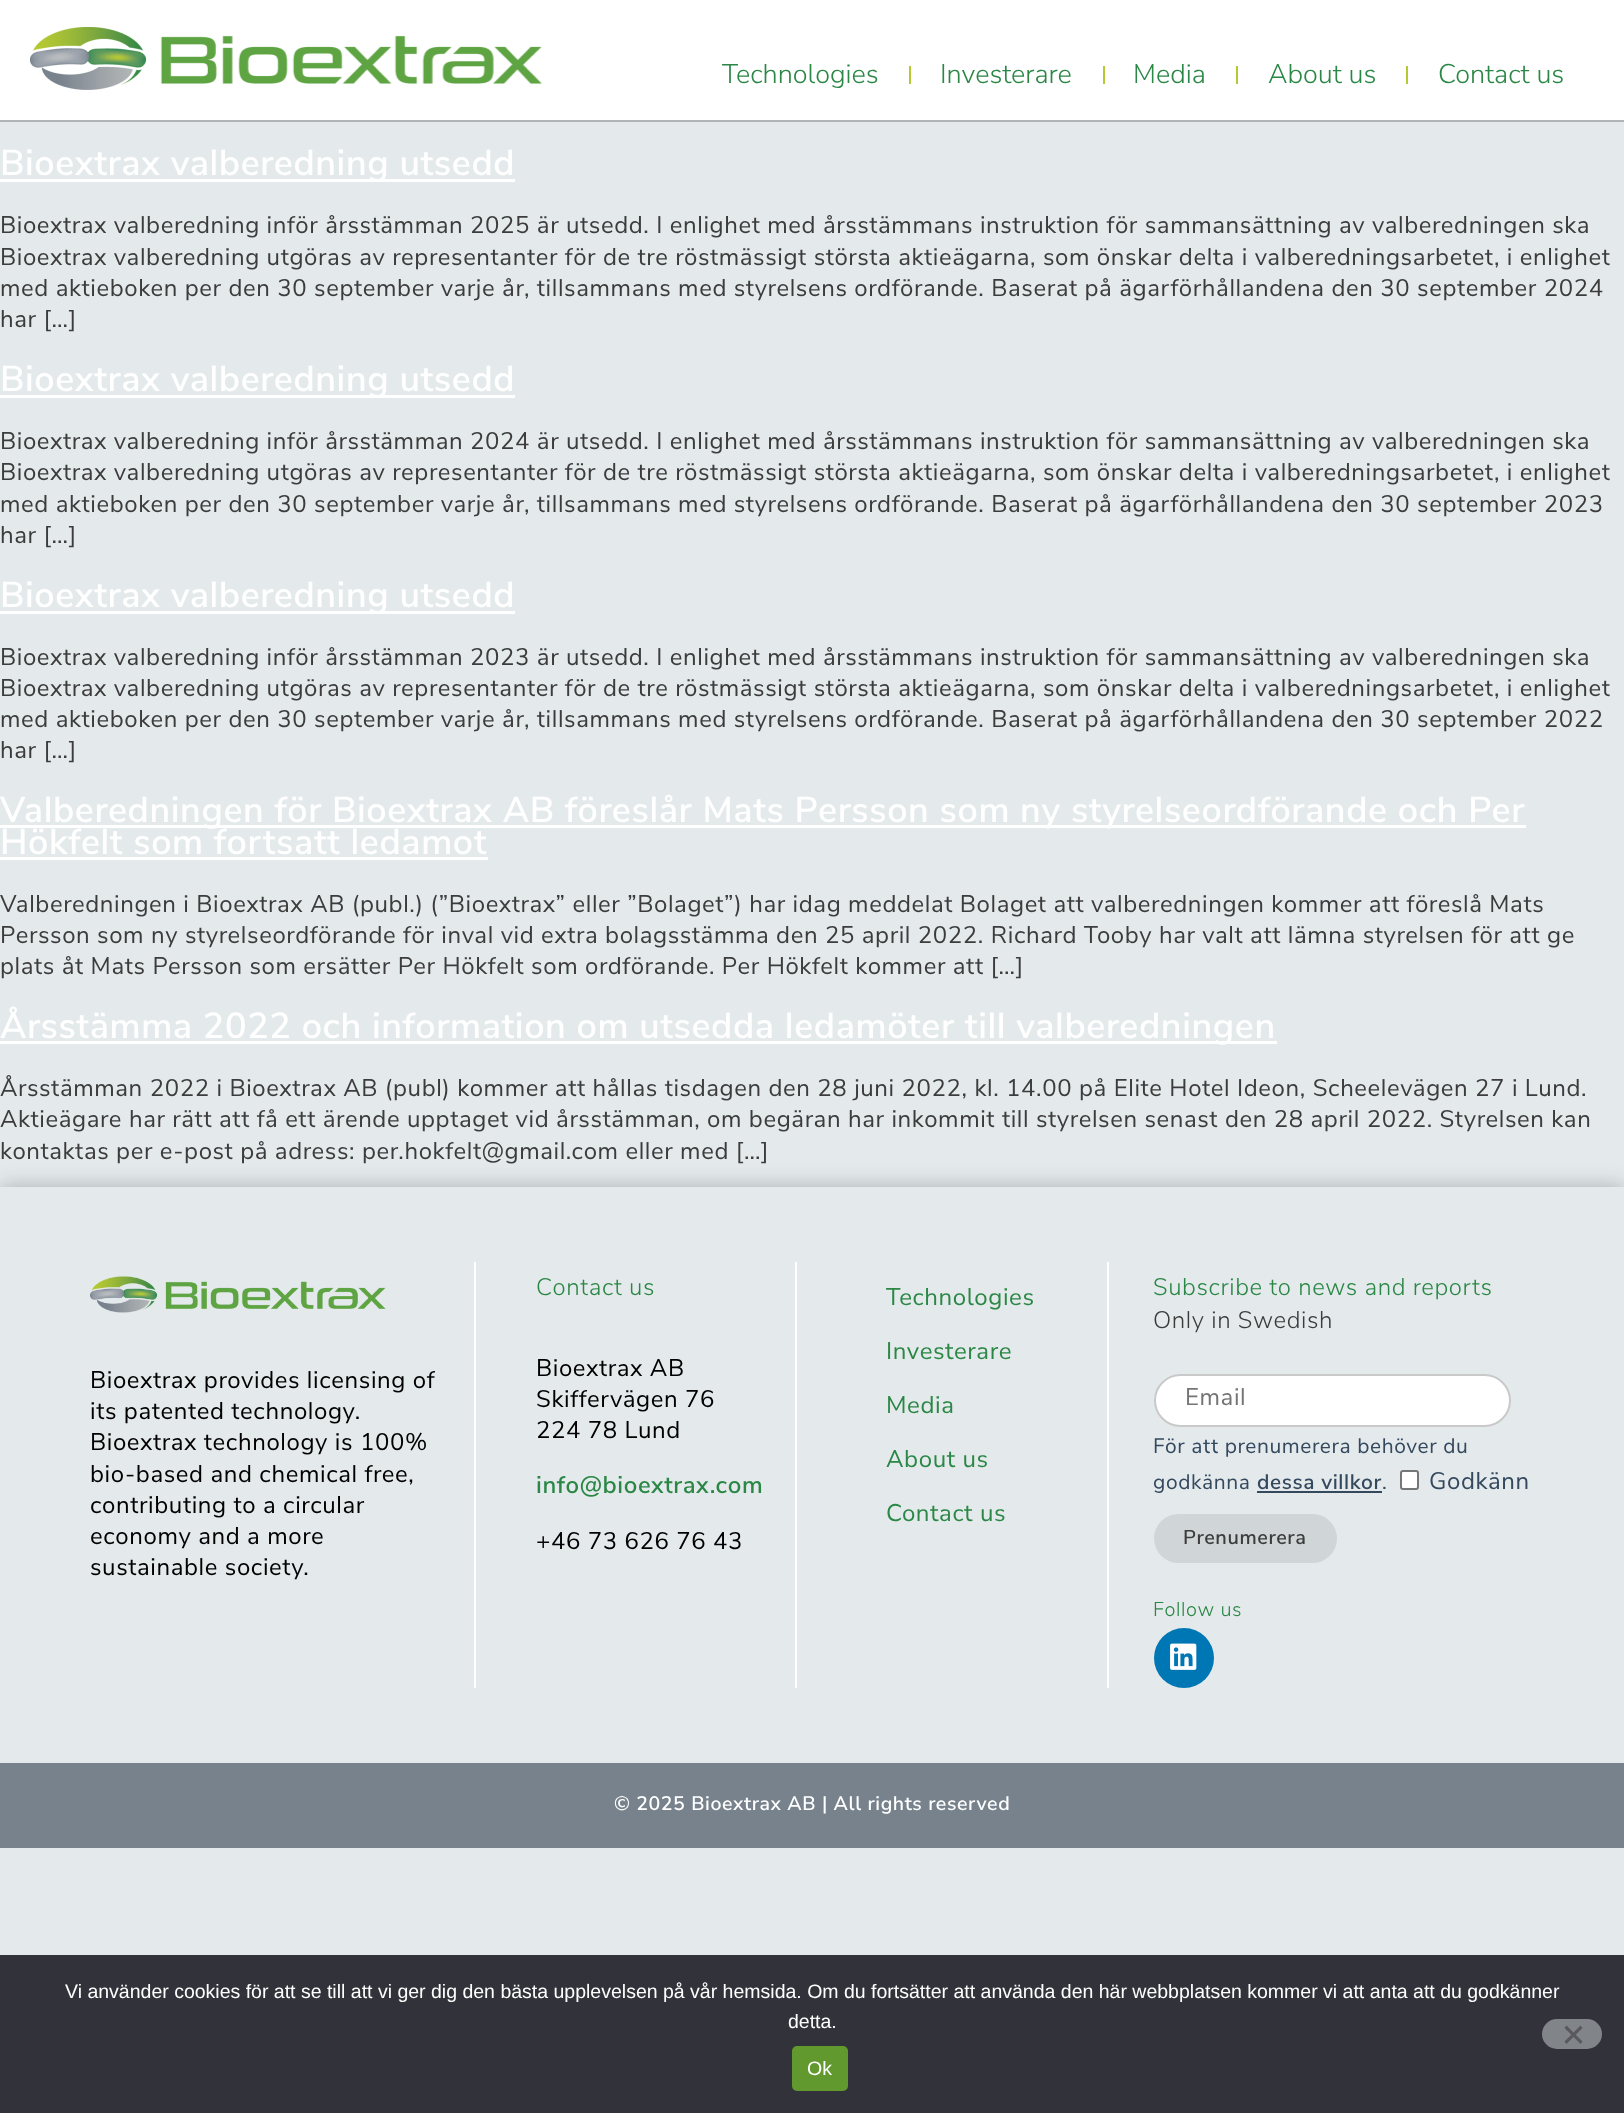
<?xml version="1.0" encoding="UTF-8"?>
<svg xmlns="http://www.w3.org/2000/svg" width="1624" height="2113">
    <defs>
        <clipPath id="clip1"><path d="M 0 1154 H 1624 V 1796 H 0 Z M 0 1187 H 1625 V 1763 H 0 Z" clip-rule="evenodd"/></clipPath>
        <filter id="blur1" x="-50%" y="-200%" width="200%" height="500%"><feGaussianBlur stdDeviation="10.5"/></filter>
    </defs>
    <rect width="100%" height="100%" fill="#E4EAEC"/>
    <rect x="0" y="0" width="1624" height="120" fill="#FFFFFF"/>
    <rect x="0" y="120" width="1624" height="2" fill="#B1B4B5"/>
    <image x="30" y="27" width="512" height="63" href="img_01.png"/>
    <text x="722" y="83" font-family="'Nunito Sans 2'" font-size="27" font-weight="300" fill="#2B8745">Technologies</text>
    <rect x="909" y="66" width="2" height="18" fill="#B6C932"/>
    <text x="940" y="83" font-family="'Nunito Sans 2'" font-size="27" font-weight="300" fill="#2B8745">Investerare</text>
    <rect x="1103" y="66" width="2" height="18" fill="#B6C932"/>
    <text x="1133" y="83" font-family="'Nunito Sans 2'" font-size="27" font-weight="300" fill="#2B8745">Media</text>
    <rect x="1236" y="66" width="2" height="18" fill="#B6C932"/>
    <text x="1268" y="83" font-family="'Nunito Sans 2'" font-size="27" font-weight="300" fill="#2B8745">About us</text>
    <rect x="1406" y="66" width="2" height="18" fill="#B6C932"/>
    <text x="1438" y="83" font-family="'Nunito Sans 2'" font-size="27" font-weight="300" fill="#2B8745">Contact us</text>
    <rect x="0" y="179" width="515" height="3" fill="#FFFFFF"/>
    <text x="0" y="175" font-family="Nunito Sans" font-size="36" font-weight="600" letter-spacing="0.6" fill="#FFFFFF">Bioextrax valberedning utsedd</text>
    <text font-family="Nunito Sans" font-size="24" letter-spacing="0.6" fill="#3C3C3C">
        <tspan x="0" y="233">Bioextrax valberedning inför årsstämman 2025 är utsedd. I enlighet med årsstämmans instruktion för sammansättning av valberedningen ska</tspan>
        <tspan x="0" y="265">Bioextrax valberedning utgöras av representanter för de tre röstmässigt största aktieägarna, som önskar delta i valberedningsarbetet, i enlighet</tspan>
        <tspan x="0" y="296">med aktieboken per den 30 september varje år, tillsammans med styrelsens ordförande. Baserat på ägarförhållandena den 30 september 2024</tspan>
        <tspan x="0" y="327">har […]</tspan>
    </text>
    <rect x="0" y="395" width="515" height="3" fill="#FFFFFF"/>
    <text x="0" y="391" font-family="Nunito Sans" font-size="36" font-weight="600" letter-spacing="0.6" fill="#FFFFFF">Bioextrax valberedning utsedd</text>
    <text font-family="Nunito Sans" font-size="24" letter-spacing="0.6" fill="#3C3C3C">
        <tspan x="0" y="449">Bioextrax valberedning inför årsstämman 2024 är utsedd. I enlighet med årsstämmans instruktion för sammansättning av valberedningen ska</tspan>
        <tspan x="0" y="480">Bioextrax valberedning utgöras av representanter för de tre röstmässigt största aktieägarna, som önskar delta i valberedningsarbetet, i enlighet</tspan>
        <tspan x="0" y="512">med aktieboken per den 30 september varje år, tillsammans med styrelsens ordförande. Baserat på ägarförhållandena den 30 september 2023</tspan>
        <tspan x="0" y="543">har […]</tspan>
    </text>
    <rect x="0" y="611" width="515" height="3" fill="#FFFFFF"/>
    <text x="0" y="607" font-family="Nunito Sans" font-size="36" font-weight="600" letter-spacing="0.6" fill="#FFFFFF">Bioextrax valberedning utsedd</text>
    <text font-family="Nunito Sans" font-size="24" letter-spacing="0.6" fill="#3C3C3C">
        <tspan x="0" y="665">Bioextrax valberedning inför årsstämman 2023 är utsedd. I enlighet med årsstämmans instruktion för sammansättning av valberedningen ska</tspan>
        <tspan x="0" y="696">Bioextrax valberedning utgöras av representanter för de tre röstmässigt största aktieägarna, som önskar delta i valberedningsarbetet, i enlighet</tspan>
        <tspan x="0" y="727">med aktieboken per den 30 september varje år, tillsammans med styrelsens ordförande. Baserat på ägarförhållandena den 30 september 2022</tspan>
        <tspan x="0" y="758">har […]</tspan>
    </text>
    <rect x="0" y="825" width="1526" height="3" fill="#FFFFFF"/>
    <text font-family="Nunito Sans" font-size="36" font-weight="600" letter-spacing="0.6" fill="#FFFFFF">
        <tspan x="0" y="822">Valberedningen för Bioextrax AB föreslår Mats Persson som ny styrelseordförande och Per</tspan>
        <tspan x="0" y="854">Hökfelt som fortsatt ledamot</tspan>
    </text>
    <rect x="0" y="857" width="488" height="3" fill="#FFFFFF"/>
    <text font-family="Nunito Sans" font-size="24" letter-spacing="0.6" fill="#3C3C3C">
        <tspan x="0" y="912">Valberedningen i Bioextrax AB (publ.) (”Bioextrax” eller ”Bolaget”) har idag meddelat Bolaget att valberedningen kommer att föreslå Mats</tspan>
        <tspan x="0" y="943">Persson som ny styrelseordförande för inval vid extra bolagsstämma den 25 april 2022. Richard Tooby har valt att lämna styrelsen för att ge</tspan>
        <tspan x="0" y="974">plats åt Mats Persson som ersätter Per Hökfelt som ordförande. Per Hökfelt kommer att […]</tspan>
    </text>
    <rect x="0" y="1041" width="1277" height="3" fill="#FFFFFF"/>
    <text x="0" y="1038" font-family="Nunito Sans" font-size="36" font-weight="600" letter-spacing="0.6" fill="#FFFFFF">Årsstämma 2022 och information om utsedda ledamöter till valberedningen</text>
    <text font-family="Nunito Sans" font-size="24" letter-spacing="0.6" fill="#3C3C3C">
        <tspan x="0" y="1096">Årsstämman 2022 i Bioextrax AB (publ) kommer att hållas tisdagen den 28 juni 2022, kl. 14.00 på Elite Hotel Ideon, Scheelevägen 27 i Lund.</tspan>
        <tspan x="0" y="1127">Aktieägare har rätt att få ett ärende upptaget vid årsstämman, om begäran har inkommit till styrelsen senast den 28 april 2022. Styrelsen kan</tspan>
        <tspan x="0" y="1159">kontaktas per e-post på adress: per.hokfelt@gmail.com eller med […]</tspan>
    </text>
    <g clip-path="url(#clip1)">
        <rect x="0" y="1187" width="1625" height="576" fill="#000000" fill-opacity="0.26" filter="url(#blur1)"/>
    </g>
    <rect x="474" y="1262" width="2" height="426" fill="#FFFFFF"/>
    <image x="90" y="1276" width="296" height="37" href="img_02.png"/>
    <text font-family="Nunito Sans" font-size="24" letter-spacing="0.6" fill="#000000">
        <tspan x="90" y="1388">Bioextrax provides licensing of</tspan>
        <tspan x="90" y="1419">its patented technology.</tspan>
        <tspan x="90" y="1450">Bioextrax technology is 100%</tspan>
        <tspan x="90" y="1482">bio-based and chemical free,</tspan>
        <tspan x="90" y="1513">contributing to a circular</tspan>
        <tspan x="90" y="1544">economy and a more</tspan>
        <tspan x="90" y="1575">sustainable society.</tspan>
    </text>
    <rect x="795" y="1262" width="2" height="426" fill="#FFFFFF"/>
    <text x="536" y="1295" font-family="Nunito Sans" font-size="24" font-weight="300" letter-spacing="0.6" fill="#2B8745">Contact us</text>
    <text font-family="Nunito Sans" font-size="24" letter-spacing="0.6" fill="#000000">
        <tspan x="536" y="1376">Bioextrax AB</tspan>
        <tspan x="536" y="1407">Skiffervägen 76</tspan>
        <tspan x="536" y="1438">224 78 Lund</tspan>
    </text>
    <text x="536" y="1493" font-family="Nunito Sans" font-size="24" font-weight="600" letter-spacing="0.6" fill="#2B8745">info@bioextrax.com</text>
    <text x="536" y="1549" font-family="Nunito Sans" font-size="24" letter-spacing="0.6" fill="#000000">+46 73 626 76 43</text>
    <text x="886" y="1305" font-family="'Nunito Sans 2'" font-size="24" letter-spacing="0.6" fill="#2B8745">Technologies</text>
    <text x="886" y="1359" font-family="'Nunito Sans 2'" font-size="24" letter-spacing="0.6" fill="#2B8745">Investerare</text>
    <text x="886" y="1413" font-family="'Nunito Sans 2'" font-size="24" letter-spacing="0.6" fill="#2B8745">Media</text>
    <text x="886" y="1467" font-family="'Nunito Sans 2'" font-size="24" letter-spacing="0.6" fill="#2B8745">About us</text>
    <text x="886" y="1521" font-family="'Nunito Sans 2'" font-size="24" letter-spacing="0.6" fill="#2B8745">Contact us</text>
    <rect x="1107" y="1262" width="2" height="426" fill="#FFFFFF"/>
    <text x="1153" y="1295" font-family="Nunito Sans" font-size="24" font-weight="300" letter-spacing="0.6" fill="#2B8745">Subscribe to news and reports</text>
    <text x="1153" y="1328" font-family="Nunito Sans" font-size="24" font-weight="300" letter-spacing="0.6" fill="#3C3C3C">Only in Swedish</text>
    <rect x="1155" y="1375" width="355" height="51" rx="25.5" fill="#FFFFFF" stroke="#C9C9C9" stroke-width="2"/>
    <text x="1185" y="1405" font-family="Nunito Sans" font-size="24" letter-spacing="0.6" fill="#757575">Email</text>
    <text font-family="Nunito Sans" font-size="21" letter-spacing="0.6" fill="#34495E">
        <tspan x="1153" y="1453">För att prenumerera behöver du</tspan>
        <tspan x="1153" y="1489">godkänna</tspan>
    </text>
    <text x="1257" y="1489" font-family="Nunito Sans" font-size="21" font-weight="600" letter-spacing="0.6" fill="#34495E">dessa villkor</text>
    <text x="1382" y="1489" font-family="Nunito Sans" font-size="21" letter-spacing="0.6" fill="#34495E">.</text>
    <rect x="1257" y="1491" width="125" height="2" fill="#34495E"/>
    <rect x="1401" y="1471" width="17" height="18" rx="2" fill="#FFFFFF" stroke="#767676" stroke-width="2"/>
    <text x="1429" y="1489" font-family="Nunito Sans" font-size="24" letter-spacing="0.6" fill="#34495E">Godkänn</text>
    <rect x="1154" y="1514" width="183" height="49" rx="24.5" fill="#D0D6D8"/>
    <text x="1183" y="1544" font-family="Nunito Sans" font-size="20" font-weight="600" letter-spacing="0.6" fill="#3C3C3C">Prenumerera</text>
    <text x="1153" y="1616" font-family="Nunito Sans" font-size="20" font-weight="300" letter-spacing="0.6" fill="#2B8745">Follow us</text>
    <circle cx="1184" cy="1658" r="30" fill="#0077B5"/>
    <image x="1170" y="1643" width="27" height="27" href="img_03.png"/>
    <rect x="0" y="1763" width="1624" height="85" fill="#77828C"/>
    <text x="614" y="1810" font-family="'Nunito Sans 2'" font-size="19.5" font-weight="600" letter-spacing="0.6" fill="#FFFFFF">© 2025 Bioextrax AB | All rights reserved</text>
    <rect x="0" y="1955" width="1624" height="158" fill="#32323A"/>
    <text x="65" y="1998" font-family="Liberation Sans" font-size="19.5" fill="#FFFFFF">Vi använder cookies för att se till att vi ger dig den bästa upplevelsen på vår hemsida. Om du fortsätter att använda den här webbplatsen kommer vi att anta att du godkänner</text>
    <text x="788" y="2028" font-family="Liberation Sans" font-size="19.5" fill="#FFFFFF">detta.</text>
    <rect x="1542" y="2019" width="60" height="30" rx="15" fill="#818489"/>
    <path d="M 1580.5 2025.5 L 1582.5 2028 L 1566.5 2044 L 1564.5 2041.5 Z" fill="#59595D"/>
    <path d="M 1564.5 2028 L 1566.5 2025.5 L 1582.5 2041.5 L 1580.5 2044 Z" fill="#59595D"/>
    <rect x="792" y="2046" width="56" height="45" rx="5" fill="#62992F"/>
    <text x="807" y="2075" font-family="Liberation Sans" font-size="19.5" fill="#FFFFFF">Ok</text>
</svg>
